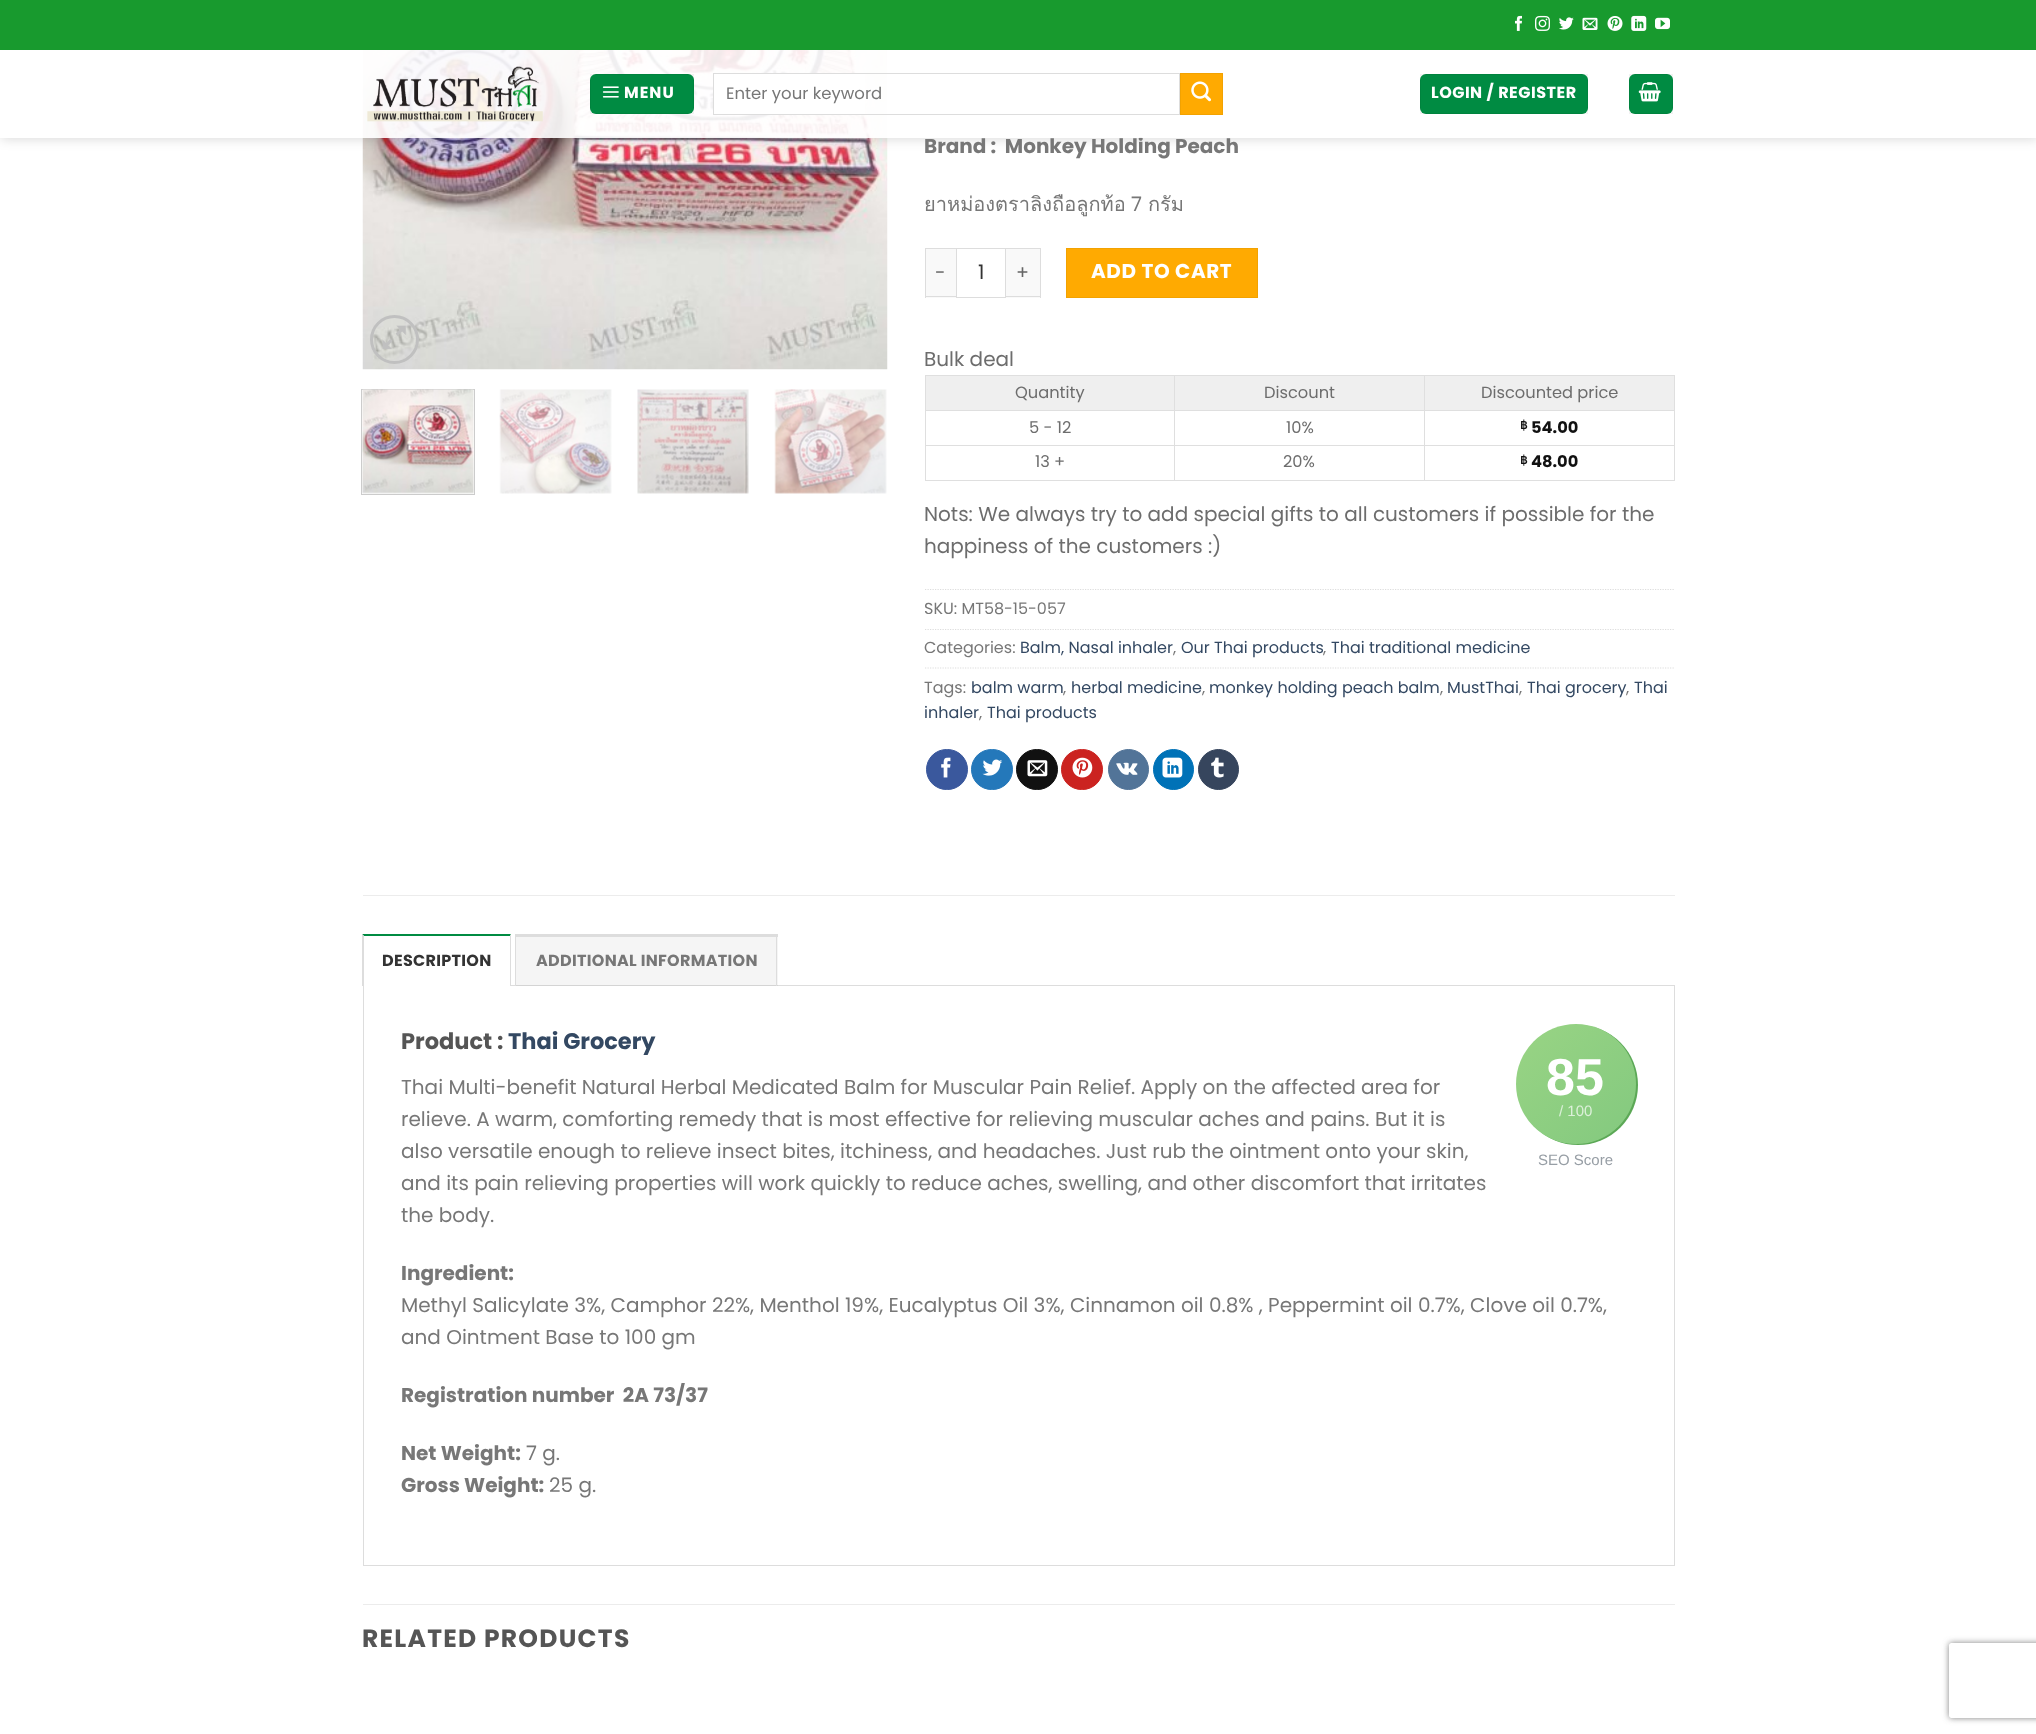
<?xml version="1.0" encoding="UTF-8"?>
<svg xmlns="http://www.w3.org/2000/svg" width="2036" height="1734">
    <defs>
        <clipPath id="clip1"><path d="M 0 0 H 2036 V 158 H 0 Z M 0 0 H 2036 V 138 H 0 Z" clip-rule="evenodd"/></clipPath>
        <filter id="blur1" x="-50%" y="-200%" width="200%" height="500%"><feGaussianBlur stdDeviation="6"/></filter>
        <filter id="blur2" x="-50%" y="-200%" width="200%" height="500%"><feGaussianBlur stdDeviation="0.5"/></filter>
        <linearGradient id="g1" gradientUnits="userSpaceOnUse" x1="1516" y1="1024" x2="1636" y2="1144"><stop offset="0" stop-color="#99D484"/><stop offset="1" stop-color="#83C97F"/></linearGradient>
        <clipPath id="clip2"><path d="M 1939 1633 H 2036 V 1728 H 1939 Z M 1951.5 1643 H 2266.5 C 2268 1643 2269 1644 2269 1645.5 V 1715.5 C 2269 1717 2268 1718 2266.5 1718 H 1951.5 C 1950 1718 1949 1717 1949 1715.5 V 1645.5 C 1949 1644 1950 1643 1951.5 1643 Z" clip-rule="evenodd"/></clipPath>
        <filter id="blur3" x="-50%" y="-200%" width="200%" height="500%"><feGaussianBlur stdDeviation="3"/></filter>
    </defs>
    <rect width="100%" height="100%" fill="#FFFFFF"/>
    <image x="362" y="50" width="526" height="320" href="img_12.png"/>
    <g clip-path="url(#clip1)">
        <rect x="1" y="1" width="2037" height="138" fill="#000000" fill-opacity="0.15" filter="url(#blur1)"/>
    </g>
    <rect x="0" y="0" width="2036" height="50" fill="#189A2E"/>
    <image x="1515" y="15" width="7" height="16" href="img_01.png"/>
    <image x="1535" y="15" width="15" height="16" href="img_02.png"/>
    <image x="1559" y="17" width="15" height="13" href="img_03.png"/>
    <image x="1582" y="17" width="16" height="13" href="img_04.png"/>
    <image x="1607" y="16" width="16" height="15" href="img_05.png"/>
    <image x="1631" y="15" width="16" height="16" href="img_06.png"/>
    <image x="1655" y="17" width="15" height="13" href="img_07.png"/>
    <text x="924" y="153" font-family="Poppins" font-size="20" font-weight="700" fill="#777777" xml:space="preserve">Brand :  Monkey Holding Peach</text>
    <rect x="0" y="50" width="2036" height="88" fill="#FFFFFF" fill-opacity="0.9"/>
    <image x="367" y="66" width="176" height="56" href="img_08.png"/>
    <rect x="590" y="74" width="104" height="40" rx="6" fill="#008B42"/>
    <rect x="590.5" y="74.5" width="103" height="39" fill="none" stroke="#000000" stroke-opacity="0.05"/>
    <image x="602" y="86" width="17" height="12" href="img_09.png"/>
    <text x="624" y="98" font-family="Poppins" font-size="16" font-weight="700" letter-spacing="1" fill="#FFFFFF">MENU</text>
    <rect x="714" y="74" width="151" height="40" fill="#FFFFFF"/>
    <rect x="713.5" y="73.5" width="466" height="41" fill="none" stroke="#DDDDDD"/>
    <text x="726" y="99" font-family="Poppins" font-size="16.5" fill="#777777">Enter your keyword</text>
    <rect x="1180.5" y="73.5" width="42" height="41" fill="#FFAA01" stroke="#F2A201"/>
    <image x="1191" y="81" width="20" height="21" href="img_10.png"/>
    <rect x="1420" y="74" width="168" height="40" rx="6" fill="#008B42"/>
    <rect x="1420.5" y="74.5" width="167" height="39" fill="none" stroke="#000000" stroke-opacity="0.05"/>
    <text x="1431" y="98" font-family="Poppins" font-size="16" font-weight="700" letter-spacing="0.5" fill="#FFFFFF">LOGIN / REGISTER</text>
    <rect x="1629" y="74" width="44" height="40" rx="6" fill="#008B42"/>
    <rect x="1629.5" y="74.5" width="43" height="39" fill="none" stroke="#000000" stroke-opacity="0.05"/>
    <image x="1638" y="82" width="23" height="20" href="img_11.png"/>
    <circle cx="394.5" cy="339.5" r="23" fill="none" stroke="#C0C0C0" stroke-width="3"/>
    <image x="382" y="325" width="24" height="24" href="img_13.png"/>
    <rect x="361.5" y="389.5" width="113" height="105" fill="none" stroke="#CCCCCC"/>
    <image x="362" y="389" width="112" height="105" href="img_14.png"/>
    <image x="499" y="389" width="113" height="105" href="img_15.png"/>
    <image x="637" y="389" width="112" height="105" href="img_16.png"/>
    <image x="774" y="389" width="113" height="105" href="img_17.png"/>
    <text x="924" y="211" font-family="Loma" font-size="20" fill="#777777">ยาหม่องตราลิงถือลูกท้อ</text>
    <text x="1131" y="211" font-family="Poppins" font-size="20" fill="#777777">7</text>
    <text x="1148" y="211" font-family="Loma" font-size="20" fill="#777777">กรัม</text>
    <rect x="926" y="249" width="30" height="49" fill="#F9F9F9"/>
    <rect x="925" y="248" width="31" height="1" fill="#DDDDDD"/>
    <rect x="925" y="296" width="31" height="1" fill="#DDDDDD"/>
    <rect x="925" y="248" width="1" height="50" fill="#DDDDDD"/>
    <text x="935" y="279" font-family="Poppins" font-size="19" letter-spacing="1" fill="#666666">-</text>
    <rect x="956.5" y="248.5" width="49" height="49" fill="none" stroke="#DDDDDD"/>
    <text x="978" y="279" font-family="Poppins" font-size="20" fill="#333333">1</text>
    <rect x="1006" y="249" width="34" height="49" fill="#F9F9F9"/>
    <rect x="1006" y="248" width="35" height="1" fill="#DDDDDD"/>
    <rect x="1040" y="248" width="1" height="50" fill="#DDDDDD"/>
    <rect x="1006" y="296" width="35" height="1" fill="#DDDDDD"/>
    <text x="1016" y="279" font-family="Poppins" font-size="19" letter-spacing="1" fill="#666666">+</text>
    <rect x="1066.5" y="248.5" width="191" height="49" fill="#FFAA01" stroke="#F2A201"/>
    <text x="1091" y="278" font-family="Poppins" font-size="20" font-weight="700" letter-spacing="0.6" fill="#FFFFFF">ADD TO CART</text>
    <text x="924" y="366" font-family="Poppins" font-size="20" fill="#6D6D6D">Bulk deal</text>
    <rect x="926" y="376" width="748" height="34" fill="#EFEFEF"/>
    <rect x="1424" y="375" width="251" height="1" fill="#DFDFDF"/>
    <rect x="1424" y="410" width="251" height="1" fill="#DFDFDF"/>
    <rect x="1424" y="445" width="251" height="1" fill="#DFDFDF"/>
    <rect x="1674" y="445" width="1" height="36" fill="#DFDFDF"/>
    <rect x="1424" y="480" width="251" height="1" fill="#DFDFDF"/>
    <rect x="1424" y="445" width="1" height="36" fill="#DFDFDF"/>
    <rect x="1174" y="445" width="251" height="1" fill="#DFDFDF"/>
    <rect x="1424" y="410" width="1" height="36" fill="#DFDFDF"/>
    <rect x="1174" y="410" width="251" height="1" fill="#DFDFDF"/>
    <rect x="1424" y="375" width="1" height="36" fill="#DFDFDF"/>
    <rect x="1174" y="375" width="251" height="1" fill="#DFDFDF"/>
    <rect x="1174" y="480" width="251" height="1" fill="#DFDFDF"/>
    <rect x="1174" y="445" width="1" height="36" fill="#DFDFDF"/>
    <rect x="925" y="445" width="250" height="1" fill="#DFDFDF"/>
    <rect x="1174" y="410" width="1" height="36" fill="#DFDFDF"/>
    <rect x="925" y="410" width="250" height="1" fill="#DFDFDF"/>
    <rect x="1174" y="375" width="1" height="36" fill="#DFDFDF"/>
    <rect x="925" y="375" width="250" height="1" fill="#DFDFDF"/>
    <rect x="925" y="480" width="250" height="1" fill="#DFDFDF"/>
    <rect x="925" y="445" width="1" height="36" fill="#DFDFDF"/>
    <rect x="925" y="410" width="1" height="36" fill="#DFDFDF"/>
    <rect x="925" y="375" width="1" height="36" fill="#DFDFDF"/>
    <text x="1015" y="398" font-family="Poppins" font-size="16.25" fill="#6D6D6D">Quantity</text>
    <text x="1264" y="398" font-family="Poppins" font-size="16.25" fill="#6D6D6D">Discount</text>
    <rect x="1674" y="410" width="1" height="36" fill="#DFDFDF"/>
    <rect x="1674" y="375" width="1" height="36" fill="#DFDFDF"/>
    <text x="1481" y="398" font-family="Poppins" font-size="16.25" fill="#6D6D6D">Discounted price</text>
    <text x="1029" y="433" font-family="Poppins" font-size="16.25" fill="#6D6D6D">5 - 12</text>
    <text x="1286" y="433" font-family="Poppins" font-size="16.25" fill="#6D6D6D">10%</text>
    <text x="1520" y="429" font-family="DejaVu Sans" font-size="12" font-weight="700" fill="#111111">฿</text>
    <text x="1531" y="433" font-family="Poppins" font-size="16.25" font-weight="700" fill="#111111">54.00</text>
    <text x="1035" y="467" font-family="Poppins" font-size="16.25" fill="#6D6D6D">13 +</text>
    <text x="1283" y="467" font-family="Poppins" font-size="16.25" fill="#6D6D6D">20%</text>
    <text x="1520" y="464" font-family="DejaVu Sans" font-size="12" font-weight="700" fill="#111111">฿</text>
    <text x="1531" y="467" font-family="Poppins" font-size="16.25" font-weight="700" fill="#111111">48.00</text>
    <text font-family="Poppins" font-size="20" fill="#6D6D6D">
        <tspan x="924" y="521">Nots: We always try to add special gifts to all customers if possible for the</tspan>
        <tspan x="924" y="553">happiness of the customers :)</tspan>
    </text>
    <path d="M 925 589.5 H 1675" fill="none" stroke="#DDDDDD" stroke-width="1.2" stroke-dasharray="1.25 1.25"/>
    <text x="924" y="614" font-family="Poppins" font-size="16" fill="#777777">SKU: MT58-15-057</text>
    <path d="M 925 629.5 H 1675" fill="none" stroke="#DDDDDD" stroke-width="1.2" stroke-dasharray="1.25 1.25"/>
    <text x="924" y="653" font-family="Poppins" font-size="16" fill="#777777">Categories:</text>
    <text x="1020" y="653" font-family="Poppins" font-size="16" fill="#334862">Balm, Nasal inhaler</text>
    <text x="1173" y="653" font-family="Poppins" font-size="16" fill="#777777">,</text>
    <text x="1181" y="653" font-family="Poppins" font-size="16" fill="#334862">Our Thai products</text>
    <text x="1323" y="653" font-family="Poppins" font-size="16" fill="#777777">,</text>
    <text x="1331" y="653" font-family="Poppins" font-size="16" fill="#334862">Thai traditional medicine</text>
    <path d="M 925 668 H 1675" fill="none" stroke="#DDDDDD" stroke-width="1.2" stroke-dasharray="1.25 1.25"/>
    <text x="924" y="693" font-family="Poppins" font-size="16" fill="#777777">Tags:</text>
    <text x="971" y="693" font-family="Poppins" font-size="16" fill="#334862">balm warm</text>
    <text x="1063" y="693" font-family="Poppins" font-size="16" fill="#777777">,</text>
    <text x="1071" y="693" font-family="Poppins" font-size="16" fill="#334862">herbal medicine</text>
    <text x="1202" y="693" font-family="Poppins" font-size="16" fill="#777777">,</text>
    <text x="1209" y="693" font-family="Poppins" font-size="16" fill="#334862">monkey holding peach balm</text>
    <text x="1440" y="693" font-family="Poppins" font-size="16" fill="#777777">,</text>
    <text x="1447" y="693" font-family="Poppins" font-size="16" fill="#334862">MustThai</text>
    <text x="1519" y="693" font-family="Poppins" font-size="16" fill="#777777">,</text>
    <text x="1527" y="693" font-family="Poppins" font-size="16" fill="#334862">Thai grocery</text>
    <text x="1626" y="693" font-family="Poppins" font-size="16" fill="#777777">,</text>
    <text x="1634" y="693" font-family="Poppins" font-size="16" fill="#334862">Thai</text>
    <text x="924" y="718" font-family="Poppins" font-size="16" fill="#334862">inhaler</text>
    <text x="979" y="718" font-family="Poppins" font-size="16" fill="#777777">,</text>
    <text x="987" y="718" font-family="Poppins" font-size="16" fill="#334862">Thai products</text>
    <rect x="926.5" y="749.5" width="41" height="40" rx="20" fill="#3A589D" stroke="#3A589D"/>
    <image x="941" y="757" width="10" height="21" href="img_18.png"/>
    <rect x="971.5" y="749.5" width="41" height="40" rx="20" fill="#2478BA" stroke="#2478BA"/>
    <image x="982" y="759" width="21" height="17" href="img_19.png"/>
    <rect x="1016.5" y="749.5" width="41" height="40" rx="20" fill="#111111" stroke="#111111"/>
    <image x="1027" y="760" width="21" height="17" href="img_20.png"/>
    <rect x="1061.5" y="749.5" width="41" height="40" rx="20" fill="#CB2320" stroke="#CB2320"/>
    <image x="1072" y="757" width="21" height="21" href="img_21.png"/>
    <circle cx="1128.5" cy="769.5" r="20" fill="#527498" stroke="#527498"/>
    <image x="1116" y="762" width="22" height="13" href="img_22.png"/>
    <circle cx="1173.5" cy="769.5" r="20" fill="#0072B7" stroke="#0072B7"/>
    <image x="1162" y="757" width="21" height="21" href="img_23.png"/>
    <circle cx="1218.5" cy="769.5" r="20" fill="#36455D" stroke="#36455D"/>
    <image x="1211" y="757" width="13" height="21" href="img_24.png"/>
    <rect x="363" y="895" width="1312" height="1" fill="#ECECEC"/>
    <rect x="363.5" y="985.5" width="1311" height="580" fill="none" stroke="#DDDDDD"/>
    <rect x="363" y="985" width="148" height="1" fill="#FFFFFF"/>
    <path d="M 362 934 H 511 L 510 936 H 364 Z" fill="#008B42"/>
    <path d="M 511 934 V 986 H 510 V 936 Z" fill="#DDDDDD"/>
    <path d="M 362 986 V 934 L 364 936 V 986 Z" fill="#DDDDDD"/>
    <text x="382" y="966" font-family="Poppins" font-size="16" font-weight="700" letter-spacing="0.3" fill="#333333">DESCRIPTION</text>
    <rect x="516" y="937" width="262" height="49" fill="#000000" fill-opacity="0.04"/>
    <rect x="515" y="934" width="263" height="3" fill="#DDDDDD"/>
    <rect x="776" y="934" width="1" height="52" fill="#DDDDDD"/>
    <rect x="515" y="934" width="1" height="52" fill="#DDDDDD"/>
    <text x="536" y="966" font-family="Poppins" font-size="16" font-weight="700" letter-spacing="0.3" fill="#777777">ADDITIONAL INFORMATION</text>
    <text x="401" y="1049" font-family="Poppins" font-size="22.5" font-weight="700" fill="#555555">Product :</text>
    <text x="508" y="1049" font-family="Poppins" font-size="22.5" font-weight="700" fill="#334862">Thai Grocery</text>
    <text font-family="Poppins" font-size="20" fill="#777777">
        <tspan x="401" y="1094">Thai Multi-benefit Natural Herbal Medicated Balm for Muscular Pain Relief. Apply on the affected area for</tspan>
        <tspan x="401" y="1126">relieve. A warm, comforting remedy that is most effective for relieving muscular aches and pains. But it is</tspan>
        <tspan x="401" y="1158">also versatile enough to relieve insect bites, itchiness, and headaches. Just rub the ointment onto your skin,</tspan>
        <tspan x="401" y="1190">and its pain relieving properties will work quickly to reduce aches, swelling, and other discomfort that irritates</tspan>
        <tspan x="401" y="1222">the body.</tspan>
    </text>
    <rect x="1518" y="1025" width="120" height="120" rx="60" fill="#5BA857" filter="url(#blur2)"/>
    <circle cx="1576" cy="1084" r="60" fill="url(#g1)"/>
    <text x="1546" y="1095" font-family="Liberation Sans" font-size="52" font-weight="700" fill="#FFFFFF">85</text>
    <text x="1559" y="1116" font-family="Liberation Sans" font-size="15" fill="#DCF0D9">/ 100</text>
    <text x="1538" y="1165" font-family="Liberation Sans" font-size="15" fill="#979EA5">SEO Score</text>
    <text x="401" y="1280" font-family="Poppins" font-size="20" font-weight="700" fill="#777777">Ingredient:</text>
    <text font-family="Poppins" font-size="20" fill="#777777">
        <tspan x="401" y="1312">Methyl Salicylate 3%, Camphor 22%, Menthol 19%, Eucalyptus Oil 3%, Cinnamon oil 0.8% , Peppermint oil 0.7%, Clove oil 0.7%,</tspan>
        <tspan x="401" y="1344">and Ointment Base to 100 gm</tspan>
    </text>
    <text x="401" y="1402" font-family="Poppins" font-size="20" font-weight="700" fill="#777777" xml:space="preserve">Registration number  2A 73/37</text>
    <text x="401" y="1460" font-family="Poppins" font-size="20" font-weight="700" fill="#777777">Net Weight:</text>
    <text x="526" y="1460" font-family="Poppins" font-size="20" fill="#777777">7 g.</text>
    <text x="401" y="1492" font-family="Poppins" font-size="20" font-weight="700" fill="#777777">Gross Weight:</text>
    <text x="549" y="1492" font-family="Poppins" font-size="20" fill="#777777">25 g.</text>
    <rect x="363" y="1604" width="1312" height="1" fill="#ECECEC"/>
    <text x="362" y="1647" font-family="Poppins" font-size="25" font-weight="700" letter-spacing="1.25" fill="#555555">RELATED PRODUCTS</text>
    <g clip-path="url(#clip2)">
        <rect x="1949" y="1643" width="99" height="75" rx="2.5" fill="#808080" filter="url(#blur3)"/>
    </g>
</svg>
